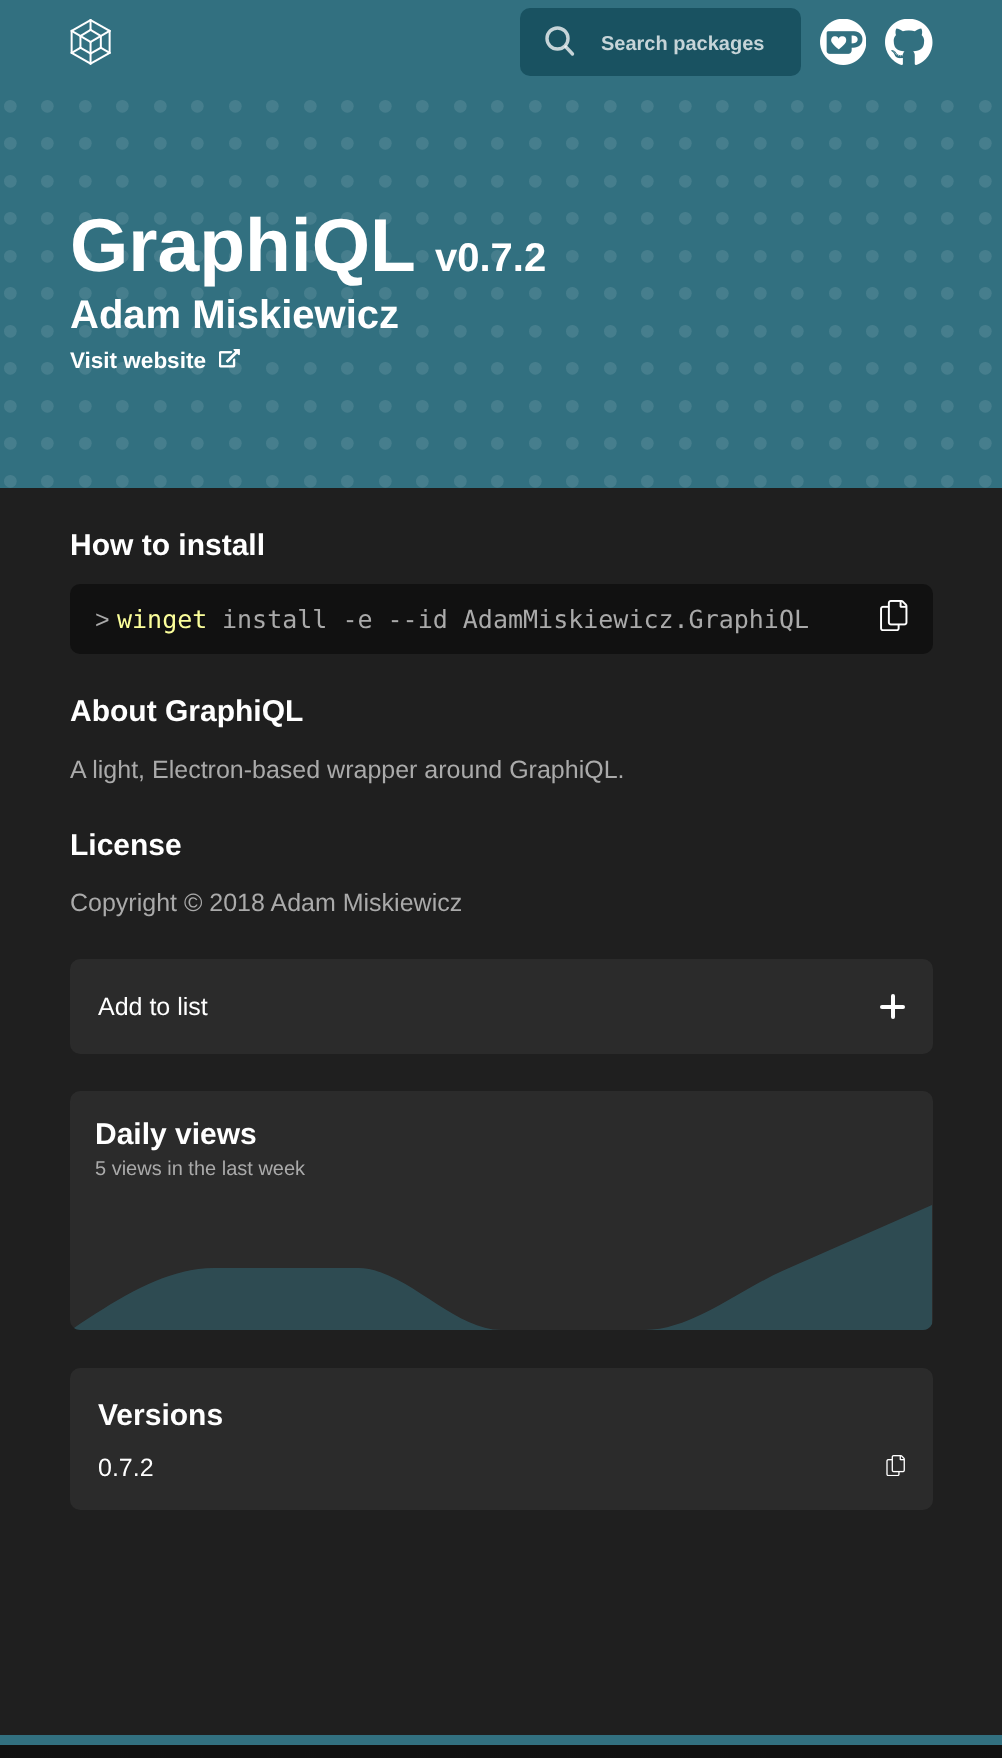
<?xml version="1.0" encoding="UTF-8"?>
<svg xmlns="http://www.w3.org/2000/svg" width="1002" height="1758">
    <defs>
        <linearGradient id="g1" gradientUnits="userSpaceOnUse" x1="501" y1="1745" x2="501" y2="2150"><stop offset="0" stop-color="#111111"/><stop offset="1" stop-color="#111111" stop-opacity="0"/></linearGradient>
    </defs>
    <rect width="100%" height="100%" fill="#1F1F1F"/>
    <rect x="0" y="0" width="1002" height="488" fill="#327080"/>
    <image x="70" y="19" width="41" height="46" href="img_01.png"/>
    <rect x="520" y="8" width="281" height="68" rx="10" fill="#195261"/>
    <circle cx="557.5" cy="38.5" r="10.5" fill="none" stroke="#C6D4D8" stroke-width="3.4"/>
    <path d="M 566 47 L 572.5 54" fill="none" stroke="#FFFFFF" stroke-opacity="0.75" stroke-width="3.4" stroke-linecap="round"/>
    <text x="601" y="50" font-family="Liberation Sans" font-size="20" font-weight="700" fill="#C6D4D8">Search packages</text>
    <image x="820" y="19" width="46" height="46" href="img_02.png"/>
    <image x="885" y="19" width="48" height="46" href="img_03.png"/>
    <image x="4" y="100" width="988" height="388" href="img_04.png"/>
    <text x="70" y="271" font-family="Liberation Sans" font-size="75" font-weight="700" fill="#FFFFFF">GraphiQL</text>
    <text x="435" y="271" font-family="Liberation Sans" font-size="40" font-weight="700" fill="#FFFFFF">v0.7.2</text>
    <text x="70" y="328" font-family="Liberation Sans" font-size="40" font-weight="700" fill="#FFFFFF">Adam Miskiewicz</text>
    <text x="70" y="368" font-family="Liberation Sans" font-size="22.5" font-weight="700" fill="#FFFFFF">Visit website</text>
    <image x="219" y="349" width="21" height="19" href="img_05.png"/>
    <text x="70" y="555" font-family="Liberation Sans" font-size="30" font-weight="700" fill="#FFFFFF">How to install</text>
    <rect x="70" y="584" width="863" height="70" rx="10" fill="#111111"/>
    <text x="95" y="628" font-family="Liberation Sans" font-size="25" fill="#AAAAAA">&gt;</text>
    <text x="117" y="628" font-family="DejaVu Sans Mono" font-size="25" fill="#FCFF9B">winget</text>
    <text x="222" y="628" font-family="DejaVu Sans Mono" font-size="25" fill="#AAAAAA">install -e --id AdamMiskiewicz.GraphiQL</text>
    <image x="880" y="600" width="28" height="31" href="img_06.png"/>
    <text x="70" y="721" font-family="Liberation Sans" font-size="30" font-weight="700" fill="#FFFFFF">About GraphiQL</text>
    <text x="70" y="778" font-family="Liberation Sans" font-size="25" fill="#AAAAAA">A light, Electron-based wrapper around GraphiQL.</text>
    <text x="70" y="855" font-family="Liberation Sans" font-size="30" font-weight="700" fill="#FFFFFF">License</text>
    <text x="70" y="911" font-family="Liberation Sans" font-size="25" fill="#AAAAAA">Copyright © 2018 Adam Miskiewicz</text>
    <rect x="70" y="959" width="863" height="95" rx="10" fill="#2B2B2B"/>
    <text x="98" y="1015" font-family="Liberation Sans" font-size="25" fill="#FFFFFF">Add to list</text>
    <rect x="891" y="994" width="4" height="25" rx="2" fill="#FFFFFF"/>
    <rect x="880" y="1005" width="25" height="4" rx="2" fill="#FFFFFF"/>
    <rect x="70" y="1091" width="863" height="239" rx="10" fill="#2B2B2B"/>
    <text x="95" y="1144" font-family="Liberation Sans" font-size="30" font-weight="700" fill="#FFFFFF">Daily views</text>
    <text x="95" y="1175" font-family="Liberation Sans" font-size="20" fill="#AAAAAA">5 views in the last week</text>
    <path d="M 80 1330 H 501 C 453 1330 405 1268 358 1268 H 214 C 167 1268 120 1297 74 1328 C 75 1329 78 1330 80 1330 Z M 645 1330 H 923 C 927 1330 930 1328 932 1324 V 1205 L 789 1268 C 741 1288 693 1330 645 1330 Z" fill="#327080" fill-opacity="0.47" fill-rule="evenodd"/>
    <rect x="70" y="1368" width="863" height="142" rx="10" fill="#2B2B2B"/>
    <text x="98" y="1425" font-family="Liberation Sans" font-size="30" font-weight="700" fill="#FFFFFF">Versions</text>
    <text x="98" y="1476" font-family="Liberation Sans" font-size="25" fill="#FFFFFF">0.7.2</text>
    <image x="886" y="1455" width="19" height="21" href="img_07.png"/>
    <rect x="0" y="1747" width="1002" height="11" fill="#111111"/>
    <rect x="0" y="1735" width="1002" height="10" fill="#327080"/>
    <image x="4" y="1750" width="988" height="8" href="img_08.png"/>
    <rect x="0" y="1745" width="1002" height="13" fill="url(#g1)"/>
</svg>
